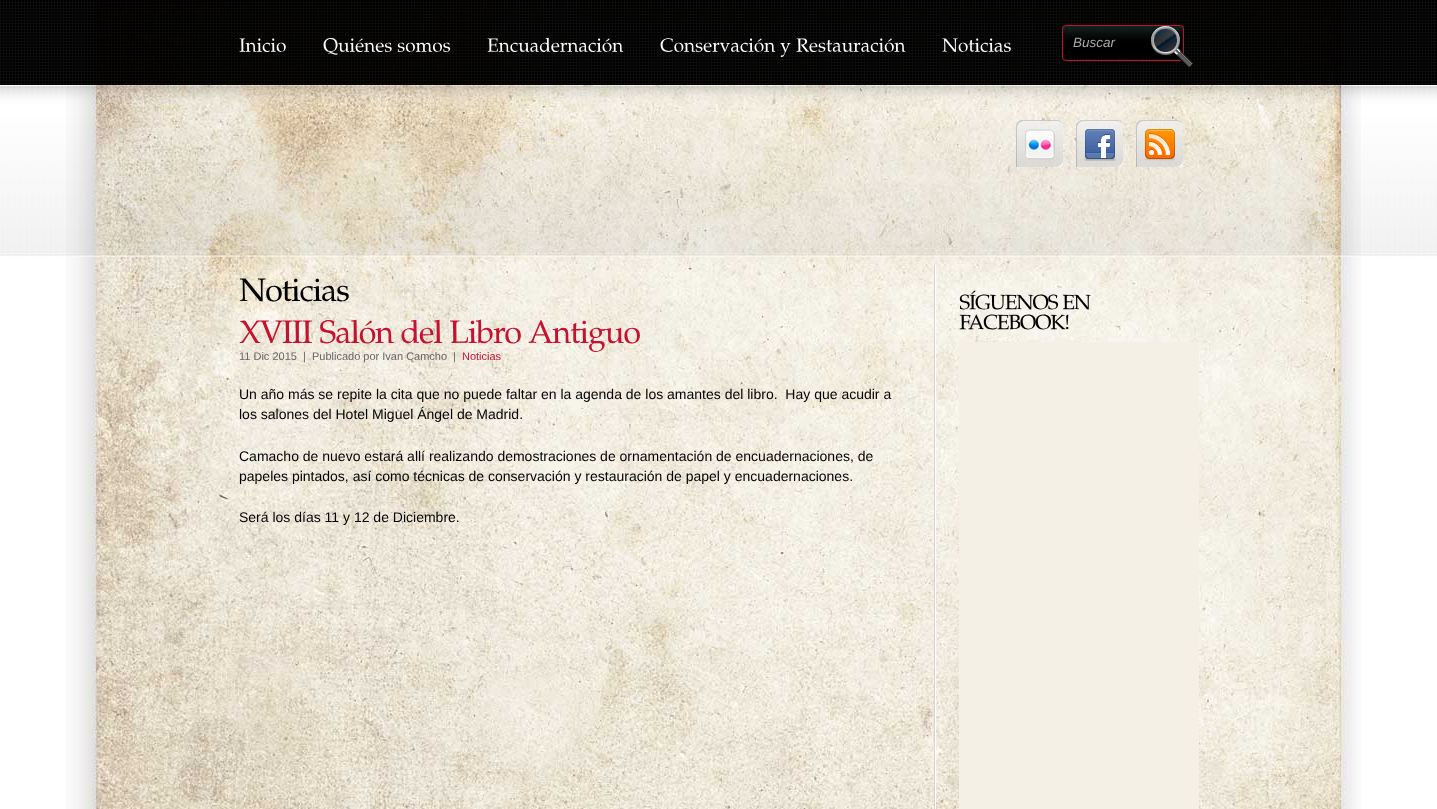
<?xml version="1.0" encoding="UTF-8"?>
<svg xmlns="http://www.w3.org/2000/svg" width="1437" height="809">
    <rect width="100%" height="100%" fill="#FFFFFF"/>
    <image x="66" y="0" width="1295" height="809" href="img_01.png"/>
    <image x="0" y="0" width="1437" height="257" href="img_02.png"/>
    <image x="239" y="38" width="47" height="14" href="img_03.png"/>
    <image x="323" y="38" width="69" height="17" href="img_04.png"/>
    <image x="397" y="42" width="54" height="10" href="img_05.png"/>
    <image x="487" y="37" width="137" height="15" href="img_06.png"/>
    <image x="660" y="38" width="116" height="14" href="img_07.png"/>
    <image x="780" y="43" width="11" height="14" href="img_08.png"/>
    <image x="796" y="38" width="110" height="14" href="img_09.png"/>
    <image x="942" y="38" width="69" height="14" href="img_10.png"/>
    <image x="1062" y="26" width="122" height="32" href="img_11.png"/>
    <rect x="1062.5" y="25.5" width="121" height="35" rx="3.5" fill="none" stroke="#C41230"/>
    <text x="1073" y="47" font-family="Liberation Sans" font-size="13.5" font-style="italic" fill="#A8A8A8">Buscar</text>
    <image x="1151" y="25" width="42" height="43" href="img_12.png"/>
    <image x="1016" y="120" width="47" height="47" href="img_13.png"/>
    <image x="1025" y="129" width="30" height="31" href="img_14.png"/>
    <image x="1076" y="120" width="47" height="47" href="img_15.png"/>
    <image x="1084" y="129" width="32" height="32" href="img_16.png"/>
    <image x="1136" y="120" width="47" height="47" href="img_17.png"/>
    <image x="1145" y="129" width="30" height="32" href="img_18.png"/>
    <image x="934" y="265" width="2" height="544" href="img_19.png"/>
    <image x="239" y="278" width="110" height="24" href="img_20.png"/>
    <image x="239" y="320" width="73" height="23" href="img_21.png"/>
    <image x="320" y="319" width="74" height="25" href="img_22.png"/>
    <image x="401" y="319" width="42" height="25" href="img_23.png"/>
    <image x="450" y="319" width="71" height="25" href="img_24.png"/>
    <image x="528" y="320" width="112" height="32" href="img_25.png"/>
    <text x="239" y="360" font-family="Liberation Sans" font-size="11" fill="#666666" xml:space="preserve">11 Dic 2015  |  Publicado por Ivan Camcho</text>
    <text x="453" y="360" font-family="Liberation Sans" font-size="11" fill="#666666">|</text>
    <text x="462" y="360" font-family="Liberation Sans" font-size="11" fill="#C41230">Noticias</text>
    <text font-family="Liberation Sans" font-size="14" fill="#000000" xml:space="preserve"><tspan x="239" y="399">Un año más se repite la cita que no puede faltar en la agenda de los amantes del libro.  Hay que acudir a</tspan><tspan x="239" y="419">los salones del Hotel Miguel Ángel de Madrid.</tspan></text>
    <text font-family="Liberation Sans" font-size="14" fill="#000000">
        <tspan x="239" y="461">Camacho de nuevo estará allí realizando demostraciones de ornamentación de encuadernaciones, de</tspan>
        <tspan x="239" y="481">papeles pintados, así como técnicas de conservación y restauración de papel y encuadernaciones.</tspan>
    </text>
    <text x="239" y="522" font-family="Liberation Sans" font-size="14" fill="#000000">Será los días 11 y 12 de Diciembre.</text>
    <image x="959" y="290" width="100" height="20" href="img_26.png"/>
    <image x="1062" y="294" width="29" height="16" href="img_27.png"/>
    <image x="959" y="314" width="110" height="16" href="img_28.png"/>
    <rect x="959" y="342" width="240" height="467" fill="#F5F0E5"/>
</svg>
